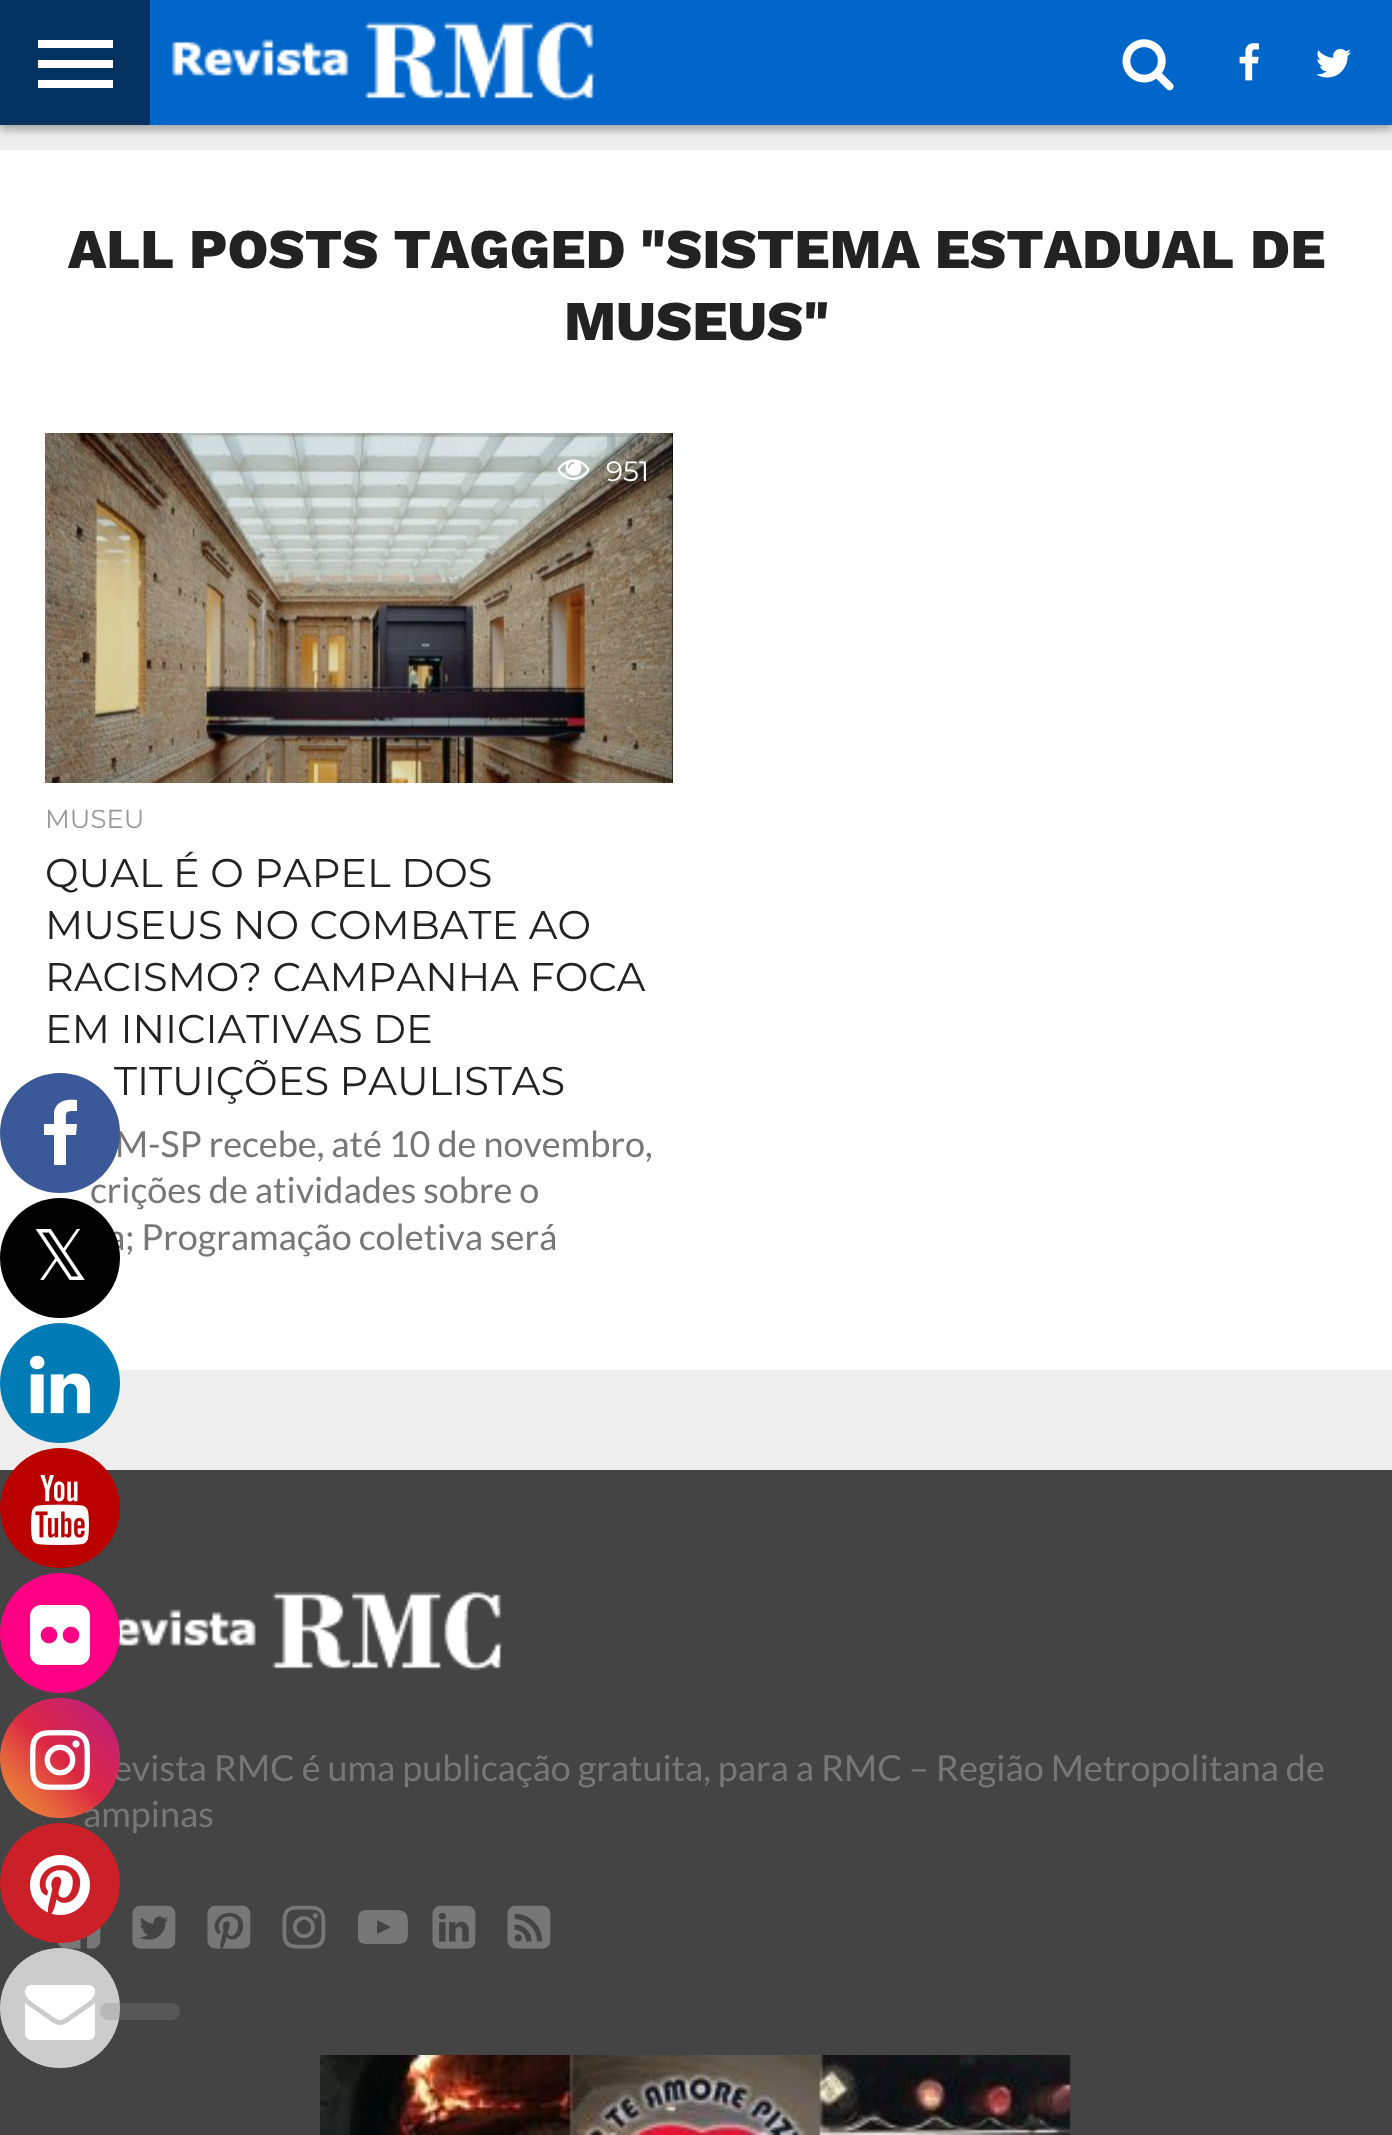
<?xml version="1.0" encoding="UTF-8"?>
<svg xmlns="http://www.w3.org/2000/svg" width="1392" height="2135">
    <style>*{font-kerning:none!important;font-variant-ligatures:none!important}</style>
    <defs>
        <filter id="blur1" x="-50%" y="-200%" width="200%" height="500%"><feGaussianBlur stdDeviation="4"/></filter>
        <linearGradient id="g1" gradientUnits="userSpaceOnUse" x1="0" y1="1818" x2="120" y2="1698"><stop offset="0" stop-color="#F09433"/><stop offset="0.25" stop-color="#E6683C"/><stop offset="0.5" stop-color="#DC2743"/><stop offset="0.75" stop-color="#CC2366"/><stop offset="1" stop-color="#BC1888"/></linearGradient>
    </defs>
    <rect width="100%" height="100%" fill="#EEEEEE"/>
    <rect x="0" y="5" width="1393" height="125" fill="#000000" fill-opacity="0.3" filter="url(#blur1)"/>
    <rect x="150" y="0" width="1242" height="125" fill="#0066CA"/>
    <rect x="0" y="0" width="150" height="125" fill="#033260"/>
    <rect x="38" y="40" width="75" height="8" fill="#FFFFFF"/>
    <rect x="38" y="60" width="75" height="8" fill="#FFFFFF"/>
    <rect x="38" y="80" width="75" height="8" fill="#FFFFFF"/>
    <image x="171" y="21" width="425" height="80" href="img_01.png"/>
    <image x="1122" y="39" width="52" height="52" href="img_02.png"/>
    <image x="1239" y="43" width="20" height="38" href="img_03.png"/>
    <image x="1316" y="48" width="35" height="30" href="img_04.png"/>
    <rect x="0" y="150" width="1392" height="1220" fill="#FFFFFF"/>
    <text x="68" y="268" font-family="Work Sans" font-size="56" font-weight="800" fill="#222222">ALL POSTS TAGGED</text>
    <text x="640" y="268" font-family="Work Sans" font-size="56" font-weight="800" fill="#222222">"SISTEMA ESTADUAL</text>
    <text x="1250" y="268" font-family="Work Sans" font-size="56" font-weight="800" fill="#222222">DE</text>
    <text x="564" y="340" font-family="Work Sans" font-size="56" font-weight="800" fill="#222222">MUSEUS"</text>
    <rect x="45" y="433" width="628" height="350" fill="#000000"/>
    <image x="45" y="433" width="628" height="350" href="img_05.png"/>
    <image x="557" y="459" width="33" height="21" href="img_06.png"/>
    <text x="606" y="481" font-family="Montserrat" font-size="28" fill="#FFFFFF">951</text>
    <text x="45" y="828" font-family="Montserrat" font-size="26" fill="#999999">MUSEU</text>
    <text font-family="Montserrat" font-size="40" fill="#222222">
        <tspan x="45" y="887">QUAL É O PAPEL DOS</tspan>
        <tspan x="45" y="939">MUSEUS NO COMBATE AO</tspan>
        <tspan x="45" y="991">RACISMO? CAMPANHA FOCA</tspan>
        <tspan x="45" y="1043">EM INICIATIVAS DE</tspan>
    </text>
    <text x="114" y="1095" font-family="Montserrat" font-size="40" fill="#222222">TITUIÇÕES PAULISTAS</text>
    <text x="115" y="1157" font-family="Lato" font-size="36" fill="#777777">M-SP recebe, até 10 de novembro,</text>
    <text x="90" y="1203" font-family="Lato" font-size="36" fill="#777777">crições de atividades sobre o</text>
    <text x="107" y="1250" font-family="Lato" font-size="36" fill="#777777">a; Programação coletiva será</text>
    <rect x="0" y="1470" width="1392" height="665" fill="#444444"/>
    <image x="118" y="1591" width="385" height="80" href="img_07.png"/>
    <text x="113" y="1781" font-family="Lato" font-size="36" fill="#777777">evista RMC é uma publicação gratuita, para a RMC – Região Metropolitana de</text>
    <text x="83" y="1827" font-family="Lato" font-size="36" fill="#777777">ampinas</text>
    <image x="57" y="1926" width="44" height="23" href="img_08.png"/>
    <image x="132" y="1905" width="44" height="44" href="img_09.png"/>
    <image x="207" y="1905" width="44" height="44" href="img_10.png"/>
    <image x="282" y="1905" width="44" height="44" href="img_11.png"/>
    <path d="M 377 1934 L 391 1927 L 377 1920 Z M 382 1910 H 397 C 408 1911 408 1916 408 1927 C 408 1940 408 1944 396 1944 H 368 C 356 1944 358 1938 358 1927 C 358 1914 357 1910 369 1910 Z" fill="#777777"/>
    <image x="432" y="1905" width="44" height="44" href="img_12.png"/>
    <image x="507" y="1905" width="44" height="44" href="img_13.png"/>
    <image x="320" y="2055" width="751" height="80" href="img_14.png"/>
    <circle cx="60" cy="1133" r="60" fill="#3B5998"/>
    <path d="M 77 1100 V 1111 C 64 1111 66 1111 66 1124 H 77 L 76 1135 H 66 V 1165 H 54 V 1135 H 44 V 1124 H 54 V 1112 C 56 1100 68 1099 77 1100 Z" fill="#FFFFFF"/>
    <circle cx="60" cy="1258" r="60" fill="#000000"/>
    <text x="32" y="1280" font-family="DejaVu Sans" font-size="70" fill="#FFFFFF">𝕏</text>
    <circle cx="60" cy="1383" r="60" fill="#007BB6"/>
    <image x="30" y="1355" width="60" height="59" href="img_15.png"/>
    <circle cx="60" cy="1508" r="60" fill="#BB0000"/>
    <image x="31" y="1475" width="58" height="70" href="img_16.png"/>
    <circle cx="60" cy="1633" r="60" fill="#FF0084"/>
    <image x="30" y="1605" width="60" height="60" href="img_17.png"/>
    <circle cx="60" cy="1758" r="60" fill="url(#g1)"/>
    <image x="30" y="1730" width="60" height="60" href="img_18.png"/>
    <circle cx="60" cy="1883" r="60" fill="#CB2027"/>
    <image x="30" y="1855" width="60" height="60" href="img_19.png"/>
    <circle cx="60" cy="2008" r="60" fill="#CCCCCC"/>
    <image x="25" y="1985" width="70" height="55" href="img_20.png"/>
    <rect x="100" y="2003" width="80" height="17" rx="8.5" fill="#888888" fill-opacity="0.29"/>
</svg>
